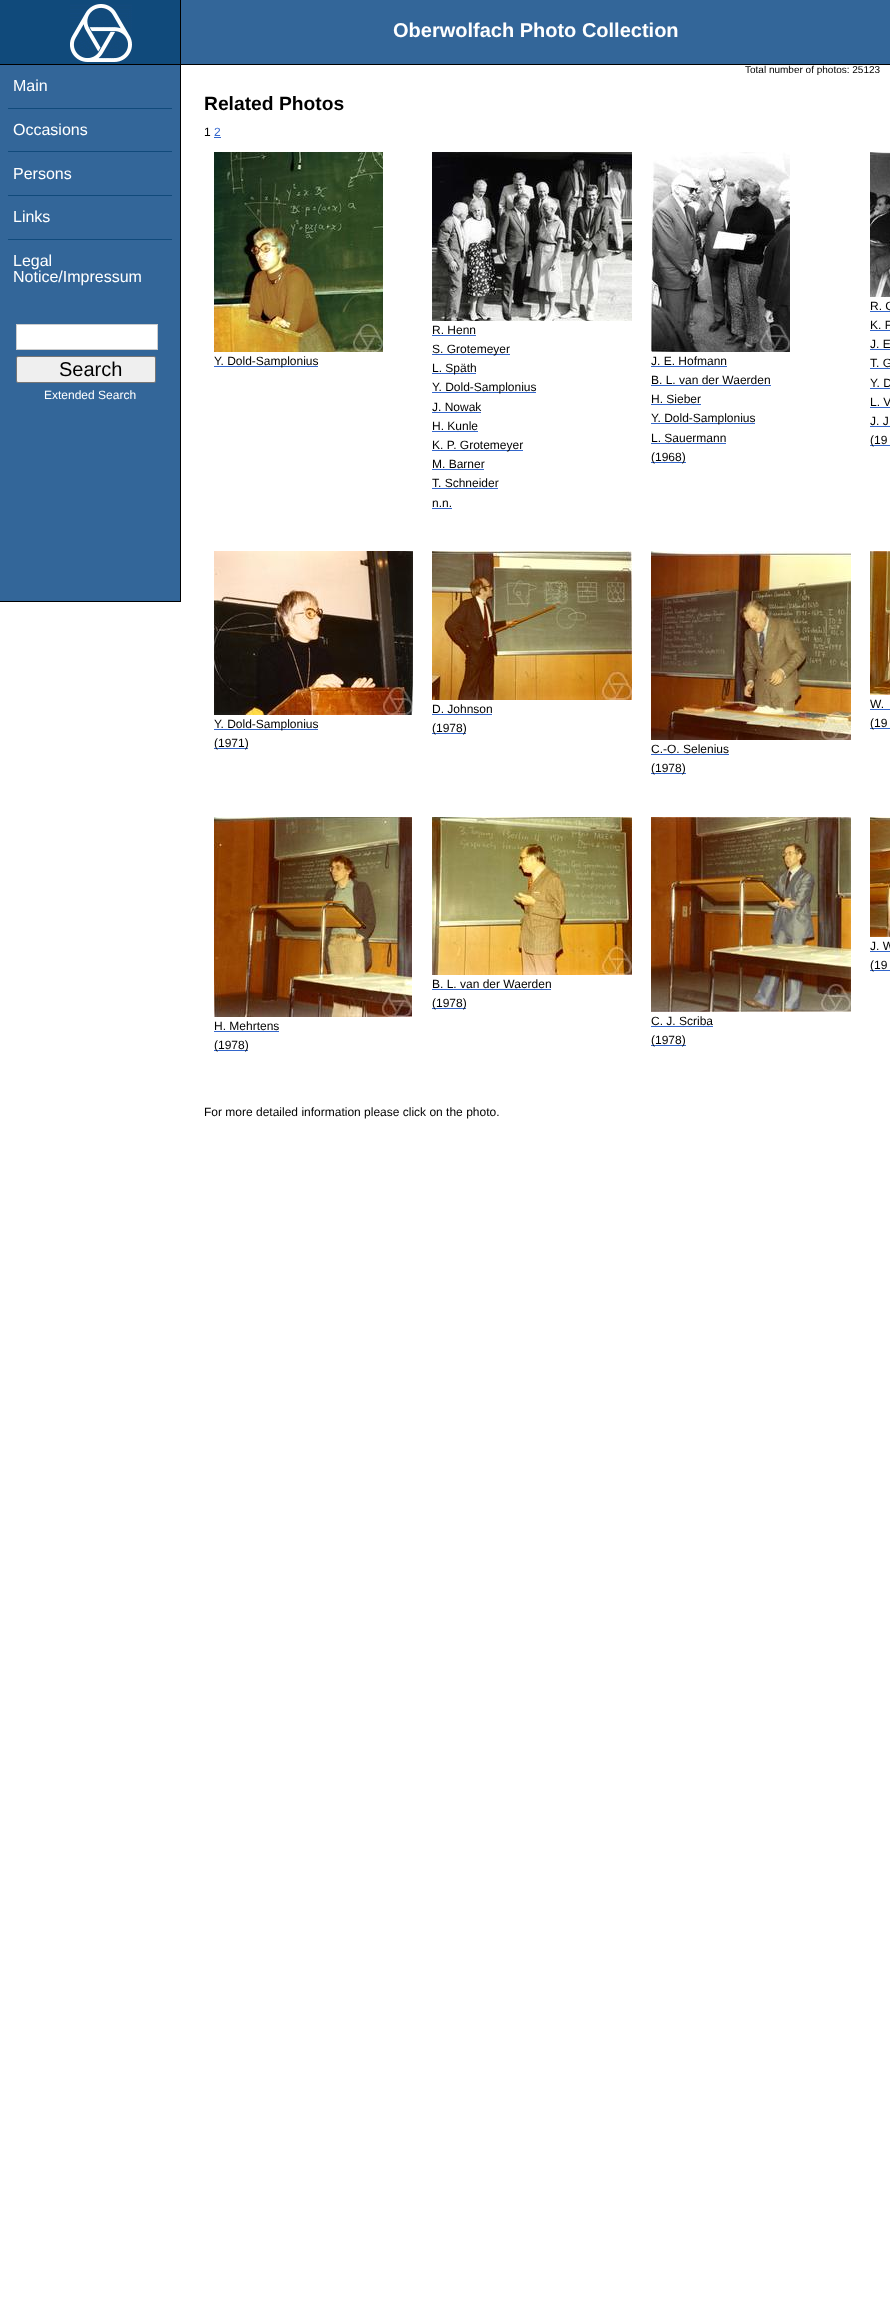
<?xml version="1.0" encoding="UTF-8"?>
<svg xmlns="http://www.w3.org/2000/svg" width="890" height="2320">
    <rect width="100%" height="100%" fill="#FFFFFF"/>
    <rect x="181" y="0" width="709" height="64" fill="#336699"/>
    <rect x="0" y="64" width="890" height="1" fill="#000000"/>
    <rect x="0" y="0" width="180" height="64" fill="#104A7B"/>
    <rect x="180" y="0" width="1" height="64" fill="#000000"/>
    <image x="70" y="4" width="62" height="58" href="img_01.png"/>
    <text x="393" y="37" font-family="Liberation Sans" font-size="20" font-weight="700" fill="#FFFFFF">Oberwolfach Photo Collection</text>
    <text x="745" y="73" font-family="Liberation Sans" font-size="10" fill="#000000">Total number of photos: 25123</text>
    <rect x="0" y="65" width="180" height="536" fill="#336699"/>
    <rect x="180" y="65" width="1" height="537" fill="#000000"/>
    <rect x="0" y="601" width="181" height="1" fill="#000000"/>
    <text x="13" y="91" font-family="Liberation Sans" font-size="16" fill="#FFFFFF">Main</text>
    <rect x="8" y="108" width="164" height="1" fill="#104A7B"/>
    <text x="13" y="135" font-family="Liberation Sans" font-size="16" fill="#FFFFFF">Occasions</text>
    <rect x="8" y="151" width="164" height="1" fill="#104A7B"/>
    <text x="13" y="179" font-family="Liberation Sans" font-size="16" fill="#FFFFFF">Persons</text>
    <rect x="8" y="195" width="164" height="1" fill="#104A7B"/>
    <text x="13" y="222" font-family="Liberation Sans" font-size="16" fill="#FFFFFF">Links</text>
    <rect x="8" y="239" width="164" height="1" fill="#104A7B"/>
    <text font-family="Liberation Sans" font-size="16" fill="#FFFFFF">
        <tspan x="13" y="266">Legal</tspan>
        <tspan x="13" y="282">Notice/Impressum</tspan>
    </text>
    <rect x="16.5" y="324.5" width="141" height="25" fill="#FFFFFF" stroke="#CCCCCC"/>
    <rect x="16.5" y="356.5" width="139" height="26" rx="1.5" fill="#EFEFEF" stroke="#767676"/>
    <text x="59" y="376" font-family="Liberation Sans" font-size="20" fill="#000000">Search</text>
    <text x="44" y="399" font-family="Liberation Sans" font-size="12" fill="#FFFFFF">Extended Search</text>
    <text x="204" y="110" font-family="Liberation Sans" font-size="19.25" font-weight="700" fill="#000000">Related Photos</text>
    <text x="204" y="136" font-family="Liberation Sans" font-size="12" fill="#000000">1</text>
    <text x="214" y="136" font-family="Liberation Sans" font-size="12" fill="#3366CC">2</text>
    <rect x="214" y="137" width="7" height="1" fill="#3366CC"/>
    <image x="214" y="152" width="169" height="200" href="img_02.png"/>
    <rect x="214" y="366" width="104" height="1" fill="#3366CC"/>
    <text x="214" y="365" font-family="Liberation Sans" font-size="12" fill="#000000">Y. Dold-Samplonius</text>
    <image x="432" y="152" width="200" height="169" href="img_03.png"/>
    <text x="432" y="334" font-family="Liberation Sans" font-size="12" fill="#000000">R. Henn</text>
    <rect x="432" y="335" width="44" height="1" fill="#3366CC"/>
    <rect x="432" y="354" width="78" height="1" fill="#3366CC"/>
    <text x="432" y="353" font-family="Liberation Sans" font-size="12" fill="#000000">S. Grotemeyer</text>
    <rect x="432" y="373" width="44" height="1" fill="#3366CC"/>
    <text x="432" y="372" font-family="Liberation Sans" font-size="12" fill="#000000">L. Späth</text>
    <rect x="432" y="392" width="104" height="1" fill="#3366CC"/>
    <text font-family="Liberation Sans" font-size="12" fill="#000000">
        <tspan x="432" y="391">Y. Dold-Samplonius</tspan>
        <tspan x="432" y="411">J. Nowak</tspan>
    </text>
    <rect x="432" y="412" width="49" height="1" fill="#3366CC"/>
    <text x="432" y="430" font-family="Liberation Sans" font-size="12" fill="#000000">H. Kunle</text>
    <rect x="432" y="431" width="46" height="1" fill="#3366CC"/>
    <rect x="432" y="450" width="91" height="1" fill="#3366CC"/>
    <text font-family="Liberation Sans" font-size="12" fill="#000000">
        <tspan x="432" y="449">K. P. Grotemeyer</tspan>
        <tspan x="432" y="468">M. Barner</tspan>
    </text>
    <rect x="432" y="469" width="52" height="1" fill="#3366CC"/>
    <text x="432" y="487" font-family="Liberation Sans" font-size="12" fill="#000000">T. Schneider</text>
    <rect x="432" y="488" width="66" height="1" fill="#3366CC"/>
    <text x="432" y="507" font-family="Liberation Sans" font-size="12" fill="#000000">n.n.</text>
    <rect x="432" y="508" width="20" height="1" fill="#3366CC"/>
    <image x="651" y="152" width="139" height="200" href="img_04.png"/>
    <text x="651" y="365" font-family="Liberation Sans" font-size="12" fill="#000000">J. E. Hofmann</text>
    <rect x="651" y="366" width="76" height="1" fill="#3366CC"/>
    <text x="651" y="384" font-family="Liberation Sans" font-size="12" fill="#000000">B. L. van der Waerden</text>
    <rect x="651" y="385" width="120" height="1" fill="#3366CC"/>
    <text x="651" y="403" font-family="Liberation Sans" font-size="12" fill="#000000">H. Sieber</text>
    <rect x="651" y="404" width="50" height="1" fill="#3366CC"/>
    <rect x="651" y="423" width="104" height="1" fill="#3366CC"/>
    <text font-family="Liberation Sans" font-size="12" fill="#000000">
        <tspan x="651" y="422">Y. Dold-Samplonius</tspan>
        <tspan x="651" y="442">L. Sauermann</tspan>
    </text>
    <rect x="651" y="443" width="75" height="1" fill="#3366CC"/>
    <rect x="651" y="462" width="35" height="1" fill="#3366CC"/>
    <text x="651" y="461" font-family="Liberation Sans" font-size="12" fill="#000000">(1968)</text>
    <image x="870" y="152" width="20" height="145" href="img_05.png"/>
    <text x="870" y="310" font-family="Liberation Sans" font-size="12" fill="#000000">R. C</text>
    <rect x="870" y="311" width="20" height="1" fill="#3366CC"/>
    <text x="870" y="329" font-family="Liberation Sans" font-size="12" fill="#000000">K. F</text>
    <rect x="870" y="330" width="20" height="1" fill="#3366CC"/>
    <text x="870" y="348" font-family="Liberation Sans" font-size="12" fill="#000000">J. E</text>
    <rect x="870" y="349" width="20" height="1" fill="#3366CC"/>
    <text x="870" y="367" font-family="Liberation Sans" font-size="12" fill="#000000">T. G</text>
    <rect x="870" y="368" width="20" height="1" fill="#3366CC"/>
    <text x="870" y="387" font-family="Liberation Sans" font-size="12" fill="#000000">Y. D</text>
    <rect x="870" y="388" width="20" height="1" fill="#3366CC"/>
    <text x="870" y="406" font-family="Liberation Sans" font-size="12" fill="#000000">L. V</text>
    <rect x="870" y="407" width="20" height="1" fill="#3366CC"/>
    <text x="870" y="425" font-family="Liberation Sans" font-size="12" fill="#000000">J. J</text>
    <rect x="870" y="426" width="20" height="1" fill="#3366CC"/>
    <rect x="870" y="445" width="20" height="1" fill="#3366CC"/>
    <text x="870" y="444" font-family="Liberation Sans" font-size="12" fill="#000000">(19</text>
    <image x="214" y="551" width="199" height="164" href="img_06.png"/>
    <rect x="214" y="729" width="104" height="1" fill="#3366CC"/>
    <text x="214" y="728" font-family="Liberation Sans" font-size="12" fill="#000000">Y. Dold-Samplonius</text>
    <rect x="214" y="748" width="34" height="1" fill="#3366CC"/>
    <text x="214" y="747" font-family="Liberation Sans" font-size="12" fill="#000000">(1971)</text>
    <image x="432" y="551" width="200" height="149" href="img_07.png"/>
    <text x="432" y="713" font-family="Liberation Sans" font-size="12" fill="#000000">D. Johnson</text>
    <rect x="432" y="714" width="60" height="1" fill="#3366CC"/>
    <rect x="432" y="733" width="34" height="1" fill="#3366CC"/>
    <text x="432" y="732" font-family="Liberation Sans" font-size="12" fill="#000000">(1978)</text>
    <image x="870" y="551" width="20" height="144" href="img_08.png"/>
    <text x="870" y="708" font-family="Liberation Sans" font-size="12" fill="#000000">W.</text>
    <rect x="870" y="709" width="20" height="1" fill="#3366CC"/>
    <rect x="870" y="728" width="20" height="1" fill="#3366CC"/>
    <text x="870" y="727" font-family="Liberation Sans" font-size="12" fill="#000000">(19</text>
    <image x="651" y="551" width="200" height="189" href="img_09.png"/>
    <text x="651" y="753" font-family="Liberation Sans" font-size="12" fill="#000000">C.-O. Selenius</text>
    <rect x="651" y="754" width="78" height="1" fill="#3366CC"/>
    <rect x="651" y="773" width="35" height="1" fill="#3366CC"/>
    <text x="651" y="772" font-family="Liberation Sans" font-size="12" fill="#000000">(1978)</text>
    <image x="870" y="817" width="20" height="120" href="img_10.png"/>
    <text x="870" y="950" font-family="Liberation Sans" font-size="12" fill="#000000">J. W</text>
    <rect x="870" y="951" width="20" height="1" fill="#3366CC"/>
    <rect x="870" y="970" width="20" height="1" fill="#3366CC"/>
    <text x="870" y="969" font-family="Liberation Sans" font-size="12" fill="#000000">(19</text>
    <image x="432" y="817" width="200" height="158" href="img_11.png"/>
    <text x="432" y="988" font-family="Liberation Sans" font-size="12" fill="#000000">B. L. van der Waerden</text>
    <rect x="432" y="989" width="119" height="1" fill="#3366CC"/>
    <rect x="432" y="1008" width="34" height="1" fill="#3366CC"/>
    <text x="432" y="1007" font-family="Liberation Sans" font-size="12" fill="#000000">(1978)</text>
    <image x="214" y="817" width="198" height="200" href="img_12.png"/>
    <text x="214" y="1030" font-family="Liberation Sans" font-size="12" fill="#000000">H. Mehrtens</text>
    <rect x="214" y="1031" width="65" height="1" fill="#3366CC"/>
    <rect x="214" y="1050" width="34" height="1" fill="#3366CC"/>
    <text x="214" y="1049" font-family="Liberation Sans" font-size="12" fill="#000000">(1978)</text>
    <image x="651" y="817" width="200" height="195" href="img_13.png"/>
    <text x="651" y="1025" font-family="Liberation Sans" font-size="12" fill="#000000">C. J. Scriba</text>
    <rect x="651" y="1026" width="62" height="1" fill="#3366CC"/>
    <rect x="651" y="1045" width="35" height="1" fill="#3366CC"/>
    <text x="651" y="1044" font-family="Liberation Sans" font-size="12" fill="#000000">(1978)</text>
    <text x="204" y="1116" font-family="Liberation Sans" font-size="12" fill="#000000">For more detailed information please click on the photo.</text>
</svg>
